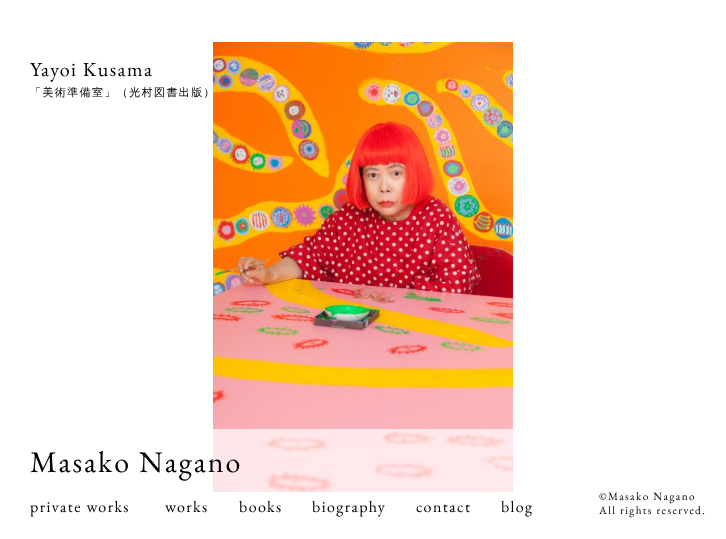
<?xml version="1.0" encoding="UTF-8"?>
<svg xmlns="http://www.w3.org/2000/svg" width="726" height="539">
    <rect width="100%" height="100%" fill="#FFFFFF"/>
    <text x="30" y="76" font-family="EB Garamond" font-size="20" letter-spacing="1.4" fill="#000000">Yayoi Kusama</text>
    <text x="30" y="96" font-family="WenQuanYi Zen Hei" font-size="11" font-weight="500" letter-spacing="1.4" fill="#000000">「美術準備室」（光村図書出版）</text>
    <image x="213" y="42" width="300" height="450" href="img_01.png"/>
    <rect x="213" y="429" width="300" height="63" fill="#FFFFFF" fill-opacity="0.7"/>
    <text x="30" y="472" font-family="EB Garamond" font-size="30" letter-spacing="2" fill="#000000">Masako Nagano</text>
    <text x="30" y="512" font-family="EB Garamond" font-size="16" letter-spacing="1.4" fill="#000000">private works</text>
    <text x="165" y="512" font-family="EB Garamond" font-size="16" letter-spacing="1.4" fill="#000000">works</text>
    <text x="239" y="512" font-family="EB Garamond" font-size="16" letter-spacing="1.4" fill="#000000">books</text>
    <text x="312" y="512" font-family="EB Garamond" font-size="16" letter-spacing="1.4" fill="#000000">biography</text>
    <text x="416" y="512" font-family="EB Garamond" font-size="16" letter-spacing="1.4" fill="#000000">contact</text>
    <text x="501" y="512" font-family="EB Garamond" font-size="16" letter-spacing="1.4" fill="#000000">blog</text>
    <text font-family="EB Garamond" font-size="11.25" letter-spacing="1.4" fill="#000000">
        <tspan x="599" y="500">©Masako Nagano</tspan>
        <tspan x="599" y="514">All rights reserved.</tspan>
    </text>
</svg>
